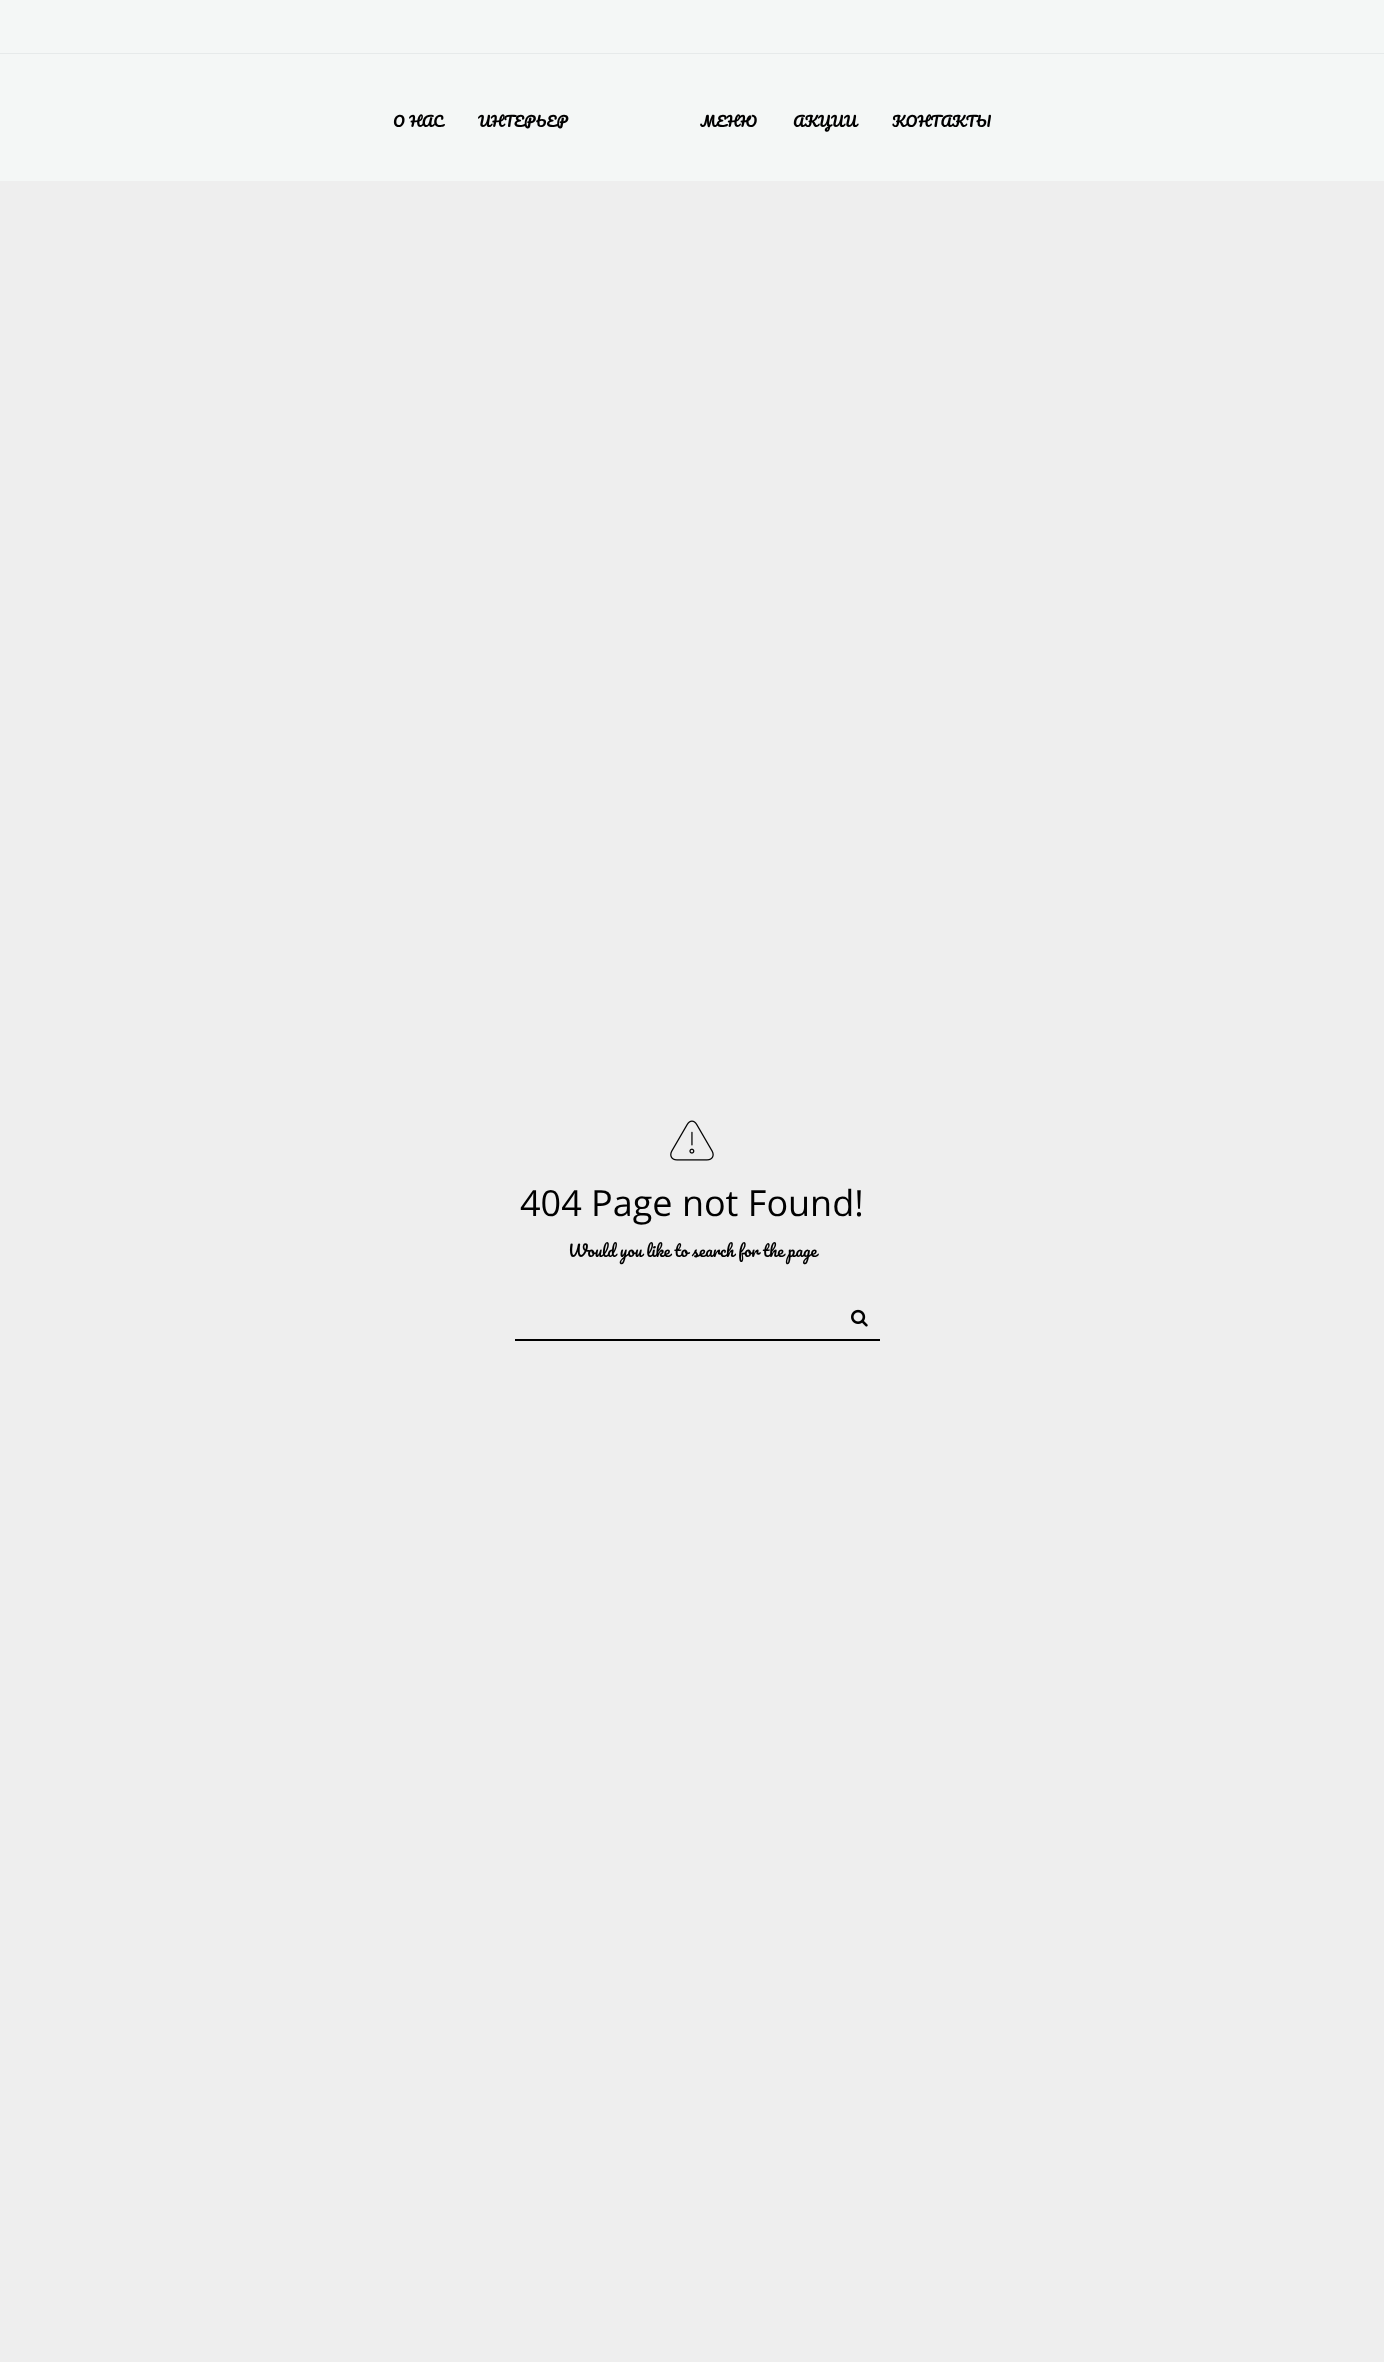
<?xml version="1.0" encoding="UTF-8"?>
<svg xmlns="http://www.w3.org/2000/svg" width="1384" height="2362">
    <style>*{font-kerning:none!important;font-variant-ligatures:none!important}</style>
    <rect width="100%" height="100%" fill="#EEEEEE"/>
    <rect x="0" y="0" width="1384" height="181" fill="#F4F7F6"/>
    <rect x="0" y="53" width="1384" height="1" fill="#E6EAEA"/>
    <text x="393" y="127" font-family="Pacifico" font-size="14" font-weight="700" letter-spacing="0.5" fill="#000000">О НАС</text>
    <text x="478" y="127" font-family="Pacifico" font-size="14" font-weight="700" letter-spacing="0.5" fill="#000000">ИНТЕРЬЕР</text>
    <text x="700" y="127" font-family="Pacifico" font-size="14" font-weight="700" letter-spacing="0.5" fill="#000000">МЕНЮ</text>
    <text x="793" y="127" font-family="Pacifico" font-size="14" font-weight="700" letter-spacing="0.5" fill="#000000">АКЦИИ</text>
    <text x="892" y="127" font-family="Pacifico" font-size="14" font-weight="700" letter-spacing="0.5" fill="#000000">КОНТАКТЫ</text>
    <image x="670" y="1120" width="44" height="41" href="img_01.png"/>
    <text x="520" y="1216" font-family="Open Sans" font-size="36" fill="#000000">404 Page not Found!</text>
    <text x="568" y="1257" font-family="Pacifico" font-size="16" fill="#000000">Would you like to search for the page</text>
    <image x="851" y="1309" width="17" height="18" href="img_02.png"/>
    <rect x="515" y="1339" width="365" height="2" fill="#000000"/>
</svg>
